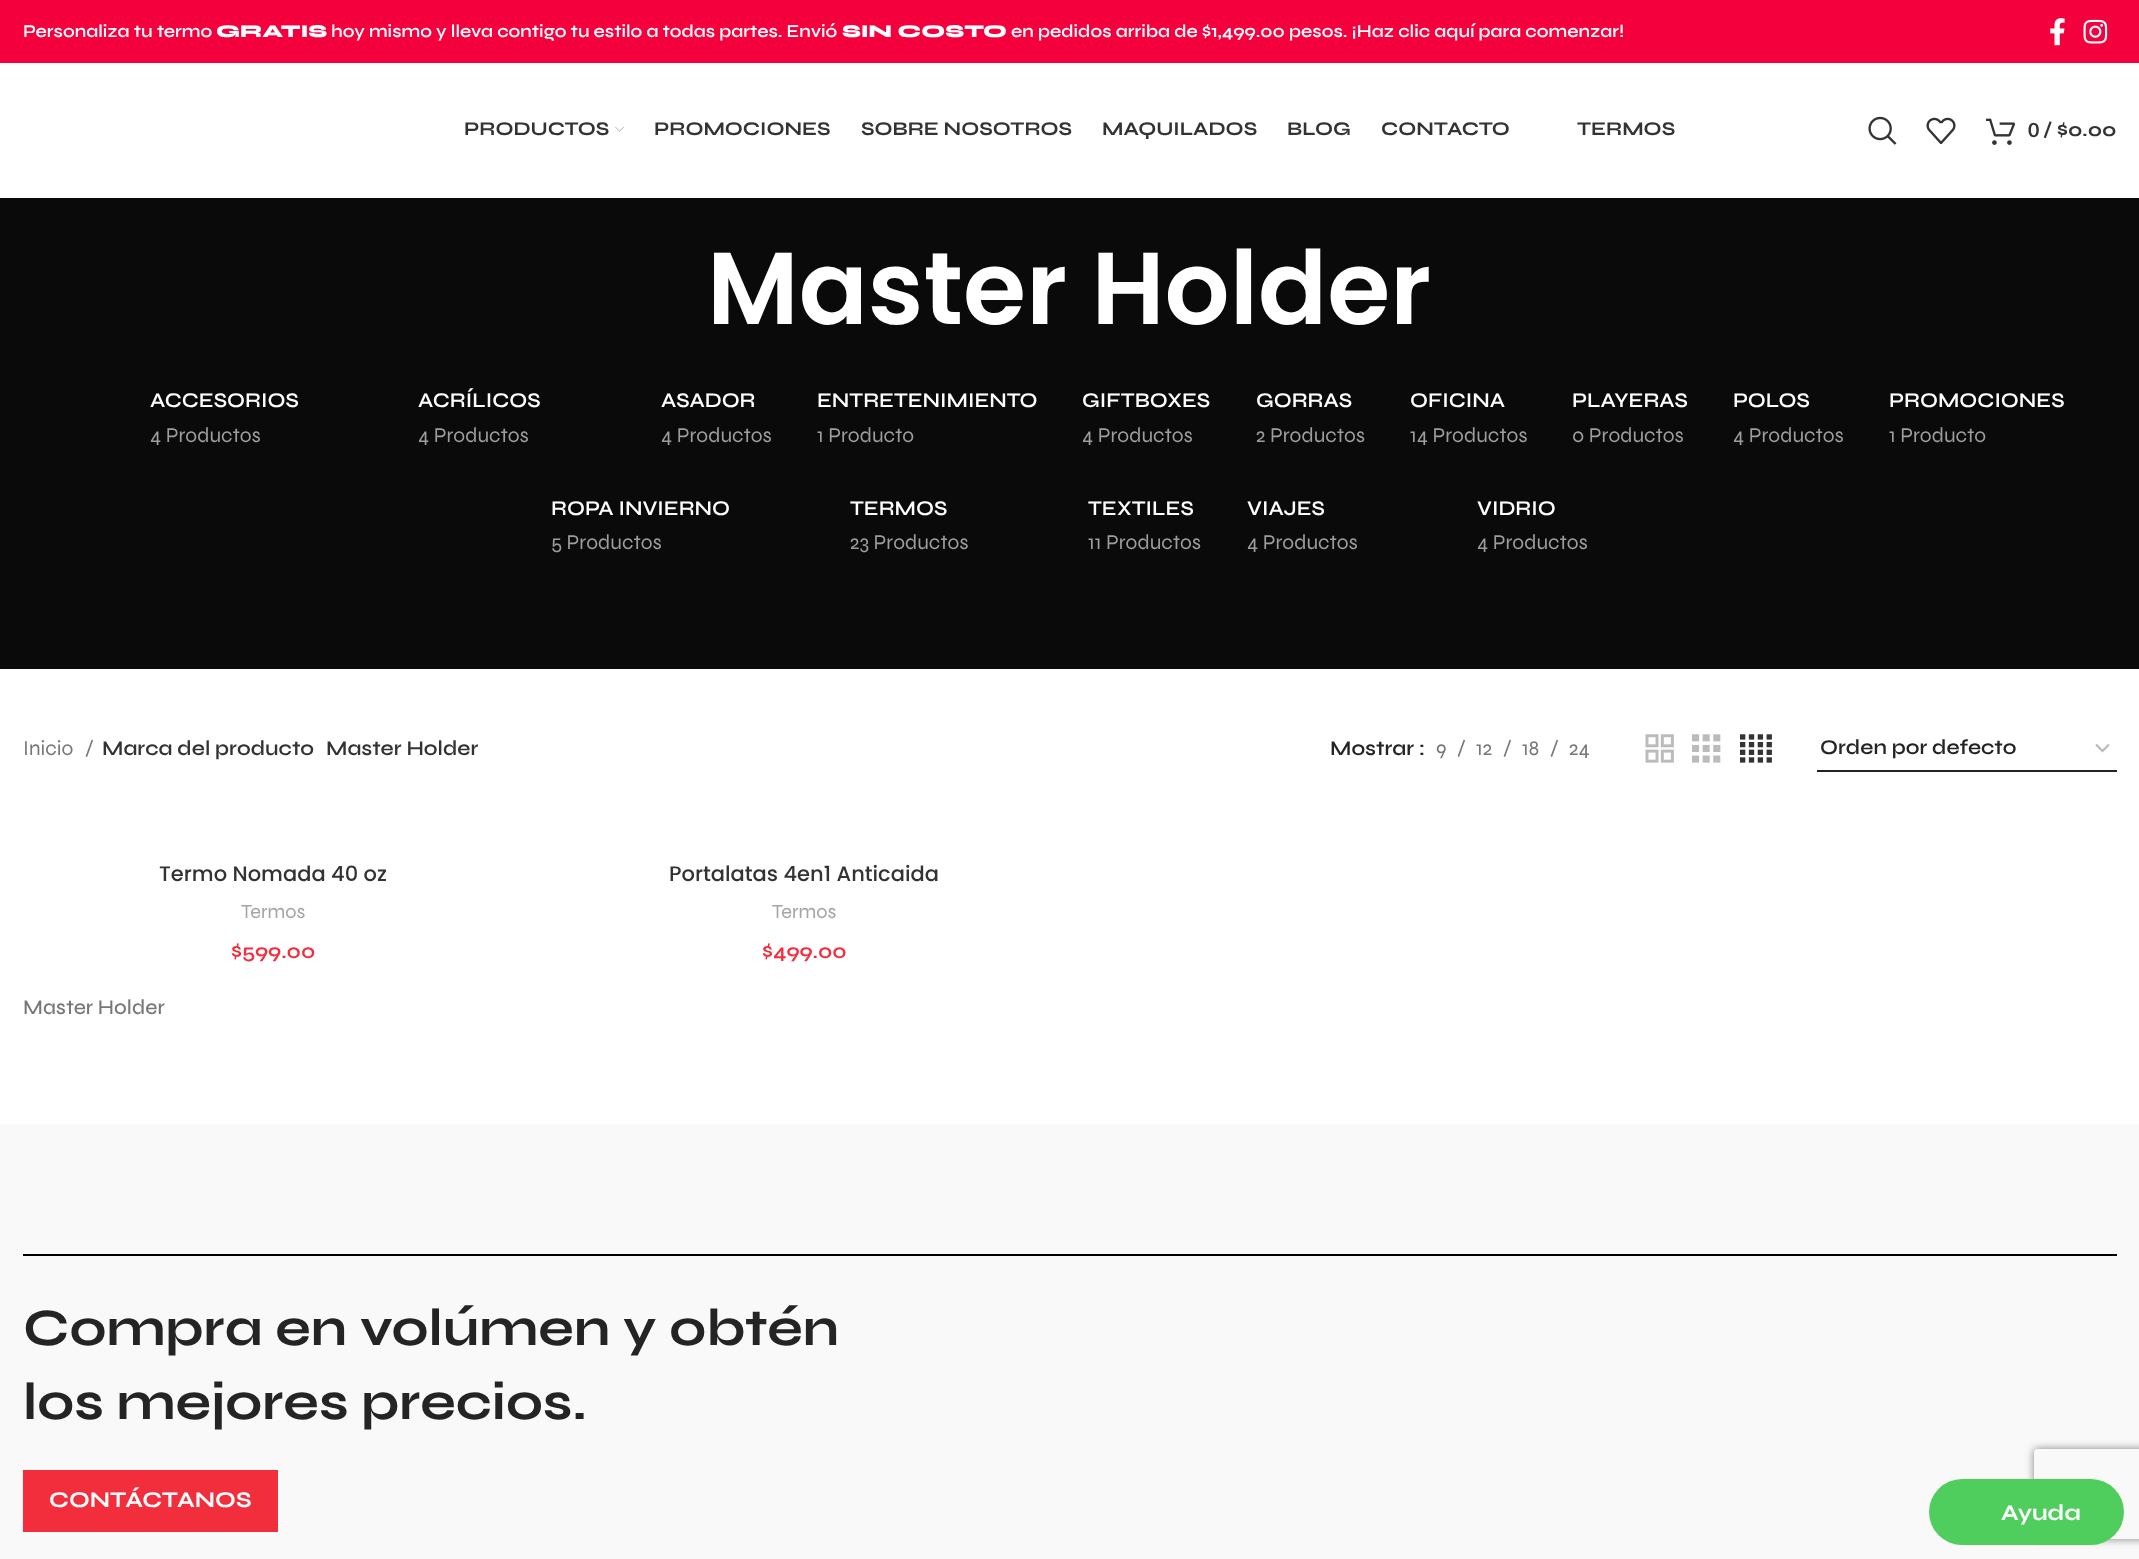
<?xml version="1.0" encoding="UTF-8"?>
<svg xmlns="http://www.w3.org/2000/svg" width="2139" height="1559">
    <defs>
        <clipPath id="clip1"><path d="M 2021 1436 H 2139 V 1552 H 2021 Z M 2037 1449 H 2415 C 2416.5 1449 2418 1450.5 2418 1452 V 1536 C 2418 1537.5 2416.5 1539 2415 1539 H 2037 C 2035.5 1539 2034 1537.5 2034 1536 V 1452 C 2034 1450.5 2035.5 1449 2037 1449 Z" clip-rule="evenodd"/></clipPath>
        <filter id="blur1" x="-50%" y="-200%" width="200%" height="500%"><feGaussianBlur stdDeviation="4"/></filter>
    </defs>
    <rect width="100%" height="100%" fill="#FFFFFF"/>
    <rect x="0" y="0" width="2139" height="63" fill="#F4003C"/>
    <text x="23" y="37" font-family="Syne" font-size="18" font-weight="600" fill="#FFFFFF">Personaliza tu termo</text>
    <text x="216" y="37" font-family="Syne" font-size="18" font-weight="800" fill="#FFFFFF">GRATIS</text>
    <text x="331" y="37" font-family="Syne" font-size="18" font-weight="600" fill="#FFFFFF">hoy mismo y lleva contigo tu estilo a todas partes. Envió</text>
    <text x="842" y="37" font-family="Syne" font-size="18" font-weight="800" fill="#FFFFFF">SIN COSTO</text>
    <text x="1011" y="37" font-family="Syne" font-size="18" font-weight="600" fill="#FFFFFF">en pedidos arriba de $1,499.00 pesos. ¡Haz clic aquí para comenzar!</text>
    <image x="2050" y="18" width="15" height="28" href="img_01.png"/>
    <image x="2083" y="19" width="25" height="25" href="img_02.png"/>
    <text x="464" y="135" font-family="Syne" font-size="19.5" font-weight="700" fill="#333333">PRODUCTOS</text>
    <image x="615" y="126" width="9" height="6" href="img_03.png"/>
    <text x="654" y="135" font-family="Syne" font-size="19.5" font-weight="700" fill="#333333">PROMOCIONES</text>
    <text x="861" y="135" font-family="Syne" font-size="19.5" font-weight="700" fill="#333333">SOBRE NOSOTROS</text>
    <text x="1102" y="135" font-family="Syne" font-size="19.5" font-weight="700" fill="#333333">MAQUILADOS</text>
    <text x="1287" y="135" font-family="Syne" font-size="19.5" font-weight="700" fill="#333333">BLOG</text>
    <text x="1381" y="135" font-family="Syne" font-size="19.5" font-weight="700" fill="#333333">CONTACTO</text>
    <text x="1577" y="135" font-family="Syne" font-size="19.5" font-weight="700" fill="#333333">TERMOS</text>
    <image x="1868" y="116" width="29" height="29" href="img_04.png"/>
    <image x="1926" y="117" width="30" height="27" href="img_05.png"/>
    <image x="1986" y="118" width="30" height="27" href="img_06.png"/>
    <text x="2028" y="137" font-family="Lato" font-size="19.5" font-weight="700" fill="#333333">0</text>
    <text x="2043" y="136" font-family="Syne" font-size="19.5" font-weight="700" fill="#333333">/ $0.00</text>
    <rect x="0" y="198" width="2139" height="471" fill="#0A0A0A"/>
    <text x="707" y="324" font-family="Poppins" font-size="102" font-weight="600" fill="#FFFFFF">Master Holder</text>
    <text x="150" y="407" font-family="Syne" font-size="21" font-weight="600" fill="#FFFFFF">ACCESORIOS</text>
    <text x="150" y="442" font-family="Syne" font-size="21" fill="#9D9D9D">4 Productos</text>
    <text x="418" y="407" font-family="Syne" font-size="21" font-weight="600" fill="#FFFFFF">ACRÍLICOS</text>
    <text x="418" y="442" font-family="Syne" font-size="21" fill="#9D9D9D">4 Productos</text>
    <text x="661" y="407" font-family="Syne" font-size="21" font-weight="600" fill="#FFFFFF">ASADOR</text>
    <text x="661" y="442" font-family="Syne" font-size="21" fill="#9D9D9D">4 Productos</text>
    <text x="817" y="407" font-family="Syne" font-size="21" font-weight="600" fill="#FFFFFF">ENTRETENIMIENTO</text>
    <text x="817" y="442" font-family="Syne" font-size="21" fill="#9D9D9D">1 Producto</text>
    <text x="1082" y="407" font-family="Syne" font-size="21" font-weight="600" fill="#FFFFFF">GIFTBOXES</text>
    <text x="1082" y="442" font-family="Syne" font-size="21" fill="#9D9D9D">4 Productos</text>
    <text x="1256" y="407" font-family="Syne" font-size="21" font-weight="600" fill="#FFFFFF">GORRAS</text>
    <text x="1256" y="442" font-family="Syne" font-size="21" fill="#9D9D9D">2 Productos</text>
    <text x="1410" y="407" font-family="Syne" font-size="21" font-weight="600" fill="#FFFFFF">OFICINA</text>
    <text x="1410" y="442" font-family="Syne" font-size="21" fill="#9D9D9D">14 Productos</text>
    <text x="1572" y="407" font-family="Syne" font-size="21" font-weight="600" fill="#FFFFFF">PLAYERAS</text>
    <text x="1572" y="442" font-family="Syne" font-size="21" fill="#9D9D9D">0 Productos</text>
    <text x="1733" y="407" font-family="Syne" font-size="21" font-weight="600" fill="#FFFFFF">POLOS</text>
    <text x="1733" y="442" font-family="Syne" font-size="21" fill="#9D9D9D">4 Productos</text>
    <text x="1889" y="407" font-family="Syne" font-size="21" font-weight="600" fill="#FFFFFF">PROMOCIONES</text>
    <text x="1889" y="442" font-family="Syne" font-size="21" fill="#9D9D9D">1 Producto</text>
    <text x="551" y="515" font-family="Syne" font-size="21" font-weight="600" fill="#FFFFFF">ROPA INVIERNO</text>
    <text x="551" y="549" font-family="Syne" font-size="21" fill="#9D9D9D">5 Productos</text>
    <text x="850" y="515" font-family="Syne" font-size="21" font-weight="600" fill="#FFFFFF">TERMOS</text>
    <text x="850" y="549" font-family="Syne" font-size="21" fill="#9D9D9D">23 Productos</text>
    <text x="1088" y="515" font-family="Syne" font-size="21" font-weight="600" fill="#FFFFFF">TEXTILES</text>
    <text x="1088" y="549" font-family="Syne" font-size="21" fill="#9D9D9D">11 Productos</text>
    <text x="1247" y="515" font-family="Syne" font-size="21" font-weight="600" fill="#FFFFFF">VIAJES</text>
    <text x="1247" y="549" font-family="Syne" font-size="21" fill="#9D9D9D">4 Productos</text>
    <text x="1477" y="515" font-family="Syne" font-size="21" font-weight="600" fill="#FFFFFF">VIDRIO</text>
    <text x="1477" y="549" font-family="Syne" font-size="21" fill="#9D9D9D">4 Productos</text>
    <text x="23" y="755" font-family="Syne" font-size="21" fill="#777777">Inicio</text>
    <text x="85" y="755" font-family="Syne" font-size="21" fill="#777777">/</text>
    <text x="102" y="755" font-family="Syne" font-size="21" font-weight="600" fill="#333333">Marca del producto</text>
    <text x="326" y="755" font-family="Syne" font-size="21" font-weight="600" fill="#333333">Master Holder</text>
    <text x="1330" y="755" font-family="Syne" font-size="21" font-weight="600" fill="#242424">Mostrar :</text>
    <text x="1436" y="755" font-family="Syne" font-size="21" fill="#777777">9</text>
    <text x="1457" y="755" font-family="Syne" font-size="21" fill="#777777">/</text>
    <text x="1476" y="755" font-family="Syne" font-size="21" fill="#777777">12</text>
    <text x="1503" y="755" font-family="Syne" font-size="21" fill="#777777">/</text>
    <text x="1522" y="755" font-family="Syne" font-size="21" fill="#777777">18</text>
    <text x="1550" y="755" font-family="Syne" font-size="21" fill="#777777">/</text>
    <text x="1569" y="755" font-family="Syne" font-size="21" fill="#777777">24</text>
    <image x="1645" y="734" width="29" height="29" href="img_07.png"/>
    <image x="1692" y="734" width="29" height="29" href="img_08.png"/>
    <image x="1740" y="734" width="32" height="29" href="img_09.png"/>
    <path d="M 2096 744.5 L 2102.5 751 L 2109 744.5" fill="none" stroke="#BBBBBB" stroke-width="2.2"/>
    <rect x="1817" y="770" width="300" height="2" fill="#222222"/>
    <text x="1820" y="754" font-family="Syne" font-size="21" font-weight="600" fill="#242424">Orden por defecto</text>
    <text x="159" y="881" font-family="Poppins" font-size="21" font-weight="500" fill="#333333">Termo Nomada 40 oz</text>
    <text x="241" y="918" font-family="Syne" font-size="20" fill="#A5A5A5">Termos</text>
    <text x="231" y="958" font-family="Syne" font-size="21" font-weight="600" fill="#F42D3D">$599.00</text>
    <text x="669" y="881" font-family="Poppins" font-size="21" font-weight="500" fill="#333333">Portalatas 4en1 Anticaida</text>
    <text x="772" y="918" font-family="Syne" font-size="20" fill="#A5A5A5">Termos</text>
    <text x="762" y="958" font-family="Syne" font-size="21" font-weight="600" fill="#F42D3D">$499.00</text>
    <text x="23" y="1014" font-family="Syne" font-size="21" font-weight="500" fill="#777777">Master Holder</text>
    <rect x="0" y="1124" width="2139" height="435" fill="#F9F9F9"/>
    <rect x="23" y="1254" width="2094" height="2" fill="#000000"/>
    <text font-family="Syne" font-size="52.5" font-weight="700" fill="#242424">
        <tspan x="23" y="1345">Compra en volúmen y obtén</tspan>
        <tspan x="23" y="1419">los mejores precios.</tspan>
    </text>
    <rect x="23" y="1470" width="255" height="62" fill="#F22D3C"/>
    <text x="49" y="1507" font-family="Syne" font-size="22.5" font-weight="700" fill="#FFFFFF">CONTÁCTANOS</text>
    <g clip-path="url(#clip1)">
        <rect x="2034" y="1449" width="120" height="90" rx="3" fill="#808080" filter="url(#blur1)"/>
    </g>
    <rect x="1929" y="1479" width="195" height="66" rx="33" fill="#4FCE5D"/>
    <text x="2001" y="1520" font-family="Syne" font-size="22.5" font-weight="700" fill="#FFFFFF">Ayuda</text>
</svg>
